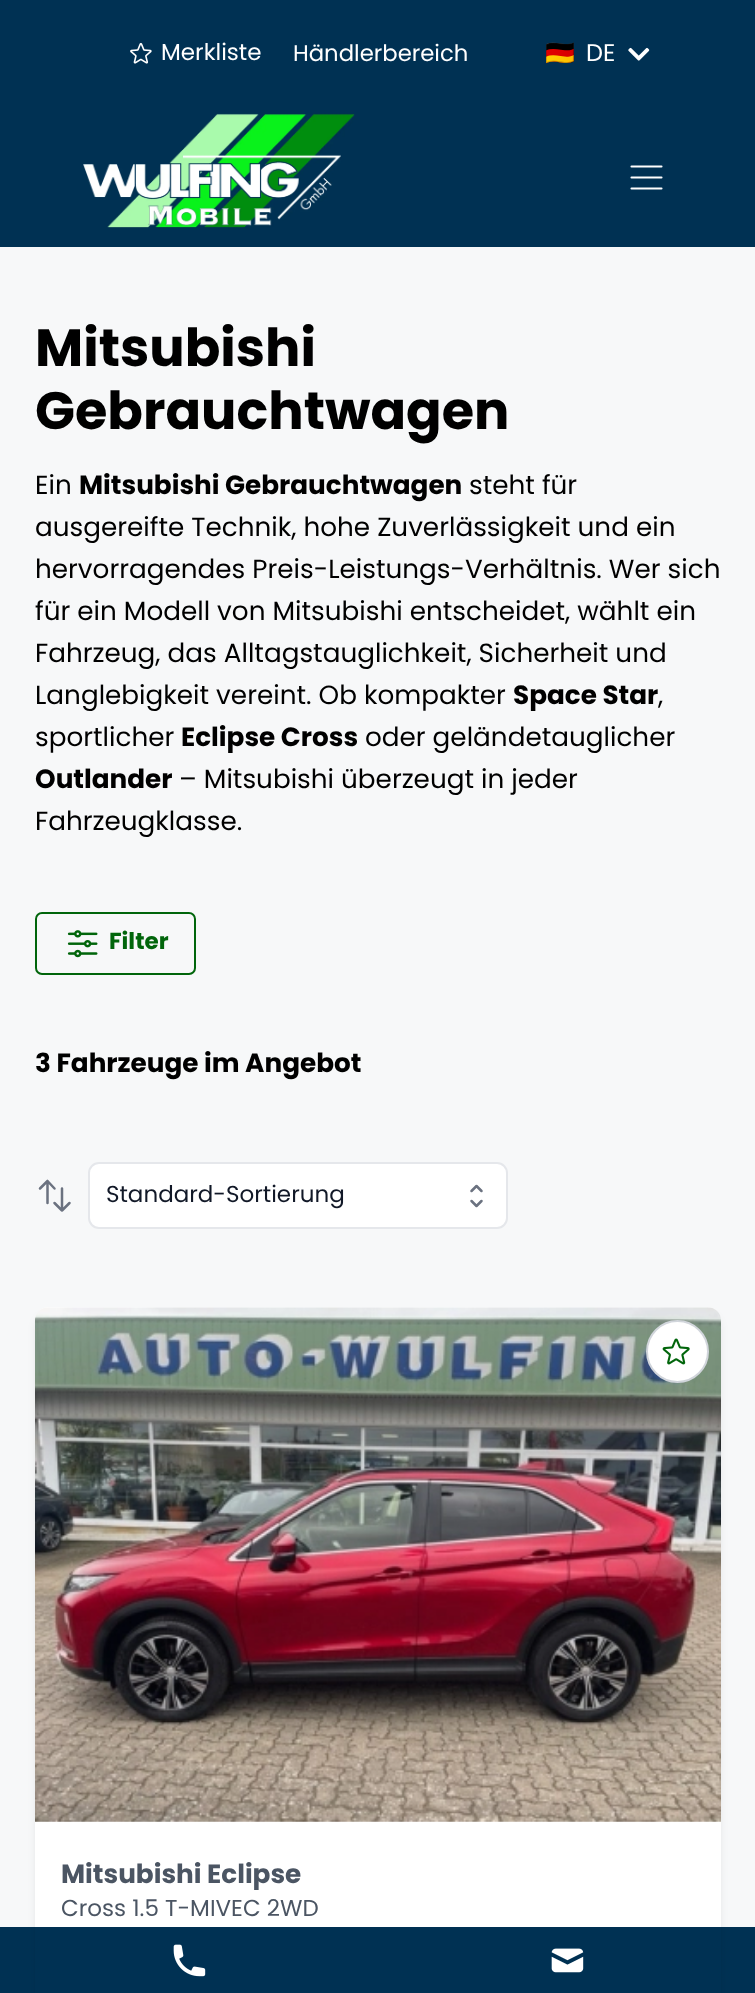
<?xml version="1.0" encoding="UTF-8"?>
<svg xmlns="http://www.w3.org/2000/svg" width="755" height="1993">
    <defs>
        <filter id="blur1" x="-50%" y="-200%" width="200%" height="500%"><feGaussianBlur stdDeviation="5"/></filter>
    </defs>
    <rect width="100%" height="100%" fill="#003153"/>
    <image x="130" y="42" width="22" height="22" href="img_01.png"/>
    <text x="161" y="60" font-family="Poppins" font-size="23" fill="#FFFFFF">Merkliste</text>
    <text x="293" y="61" font-family="Poppins" font-size="22.75" fill="#FFFFFF">Händlerbereich</text>
    <text x="545" y="61" font-family="Noto Color Emoji" font-size="24" fill="#FFFFFF">🇩🇪</text>
    <text x="586" y="61" font-family="Poppins" font-size="24" fill="#FFFFFF">DE</text>
    <image x="628" y="47" width="22" height="14" href="img_02.png"/>
    <image x="83" y="113" width="272" height="115" href="img_03.png"/>
    <path d="M 631.5 177.5 H 661.5 M 631.5 166.5 H 661.5 M 631.5 188.5 H 661.5" fill="none" stroke="#FFFFFF" stroke-width="2.1" stroke-linecap="round" stroke-linejoin="round"/>
    <rect x="0" y="247" width="755" height="1680" fill="#F7F8F9"/>
    <text font-family="Poppins" font-size="52.5" font-weight="700" fill="#000000">
        <tspan x="35" y="366">Mitsubishi</tspan>
        <tspan x="35" y="429">Gebrauchtwagen</tspan>
    </text>
    <text x="35" y="494" font-family="Poppins" font-size="26.25" fill="#000000">Ein</text>
    <text x="79" y="494" font-family="Poppins" font-size="26.25" font-weight="700" fill="#000000">Mitsubishi Gebrauchtwagen</text>
    <text x="469" y="494" font-family="Poppins" font-size="26.25" fill="#000000">steht für</text>
    <text font-family="Poppins" font-size="26.25" fill="#000000">
        <tspan x="35" y="536">ausgereifte Technik, hohe Zuverlässigkeit und ein</tspan>
        <tspan x="35" y="578">hervorragendes Preis-Leistungs-Verhältnis. Wer sich</tspan>
        <tspan x="35" y="620">für ein Modell von Mitsubishi entscheidet, wählt ein</tspan>
        <tspan x="35" y="662">Fahrzeug, das Alltagstauglichkeit, Sicherheit und</tspan>
        <tspan x="35" y="704">Langlebigkeit vereint. Ob kompakter</tspan>
    </text>
    <text x="513" y="704" font-family="Poppins" font-size="26.25" font-weight="700" fill="#000000">Space Star</text>
    <text x="658" y="704" font-family="Poppins" font-size="26.25" fill="#000000">,</text>
    <text x="35" y="746" font-family="Poppins" font-size="26.25" fill="#000000">sportlicher</text>
    <text x="181" y="746" font-family="Poppins" font-size="26.25" font-weight="700" fill="#000000">Eclipse Cross</text>
    <text x="365" y="746" font-family="Poppins" font-size="26.25" fill="#000000">oder geländetauglicher</text>
    <text x="35" y="788" font-family="Poppins" font-size="26.25" font-weight="700" fill="#000000">Outlander</text>
    <text x="179" y="788" font-family="Poppins" font-size="26.25" fill="#000000">– Mitsubishi überzeugt in jeder</text>
    <text x="35" y="830" font-family="Poppins" font-size="26.25" fill="#000000">Fahrzeugklasse.</text>
    <rect x="36" y="913" width="159" height="61" rx="6" fill="none" stroke="#01650B" stroke-width="2"/>
    <image x="67" y="930" width="31" height="28" href="img_04.png"/>
    <text x="109" y="949" font-family="Poppins" font-size="23" font-weight="700" fill="#01650B">Filter</text>
    <text x="35" y="1072" font-family="Poppins" font-size="26.25" font-weight="700" fill="#000000">3 Fahrzeuge im Angebot</text>
    <path d="M 40 1188.5 L 47.5 1181 M 47.5 1181 L 54.5 1188.5 M 47.5 1181 V 1203 M 69.5 1203 L 62 1210.5 M 62 1210.5 L 54.5 1203 M 62 1210.5 V 1188.5" fill="none" stroke="#6B7280" stroke-width="2.5" stroke-linecap="round" stroke-linejoin="round"/>
    <rect x="89" y="1163" width="418" height="65" rx="10" fill="#FFFFFF" stroke="#E5E7EB" stroke-width="2"/>
    <text x="106" y="1202" font-family="Poppins" font-size="23" fill="#111827">Standard-Sortierung</text>
    <path d="M 471.5 1191 L 476.5 1186 L 481.5 1191 M 481.5 1201 L 476.5 1206 L 471.5 1201" fill="none" stroke="#6B7280" stroke-width="2.5" stroke-linecap="round" stroke-linejoin="round"/>
    <rect x="37" y="1316" width="682" height="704" rx="12" fill="#000000" fill-opacity="0.1" filter="url(#blur1)"/>
    <rect x="35" y="1307" width="686" height="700" rx="14" fill="#FFFFFF"/>
    <image x="35" y="1307" width="686" height="515" href="img_05.png"/>
    <circle cx="677.5" cy="1351.5" r="30.5" fill="#FFFFFF" stroke="#D1D5DB" stroke-width="2"/>
    <image x="662" y="1338" width="28" height="27" href="img_06.png"/>
    <text x="61" y="1883" font-family="Poppins" font-size="26.25" font-weight="700" fill="#4B5563">Mitsubishi Eclipse</text>
    <text x="61" y="1916" font-family="Poppins" font-size="23" fill="#4B5563">Cross 1.5 T-MIVEC 2WD</text>
    <rect x="35" y="1927" width="686" height="66" fill="#003153"/>
    <image x="173" y="1944" width="33" height="33" href="img_07.png"/>
    <image x="551" y="1948" width="33" height="25" href="img_08.png"/>
</svg>
